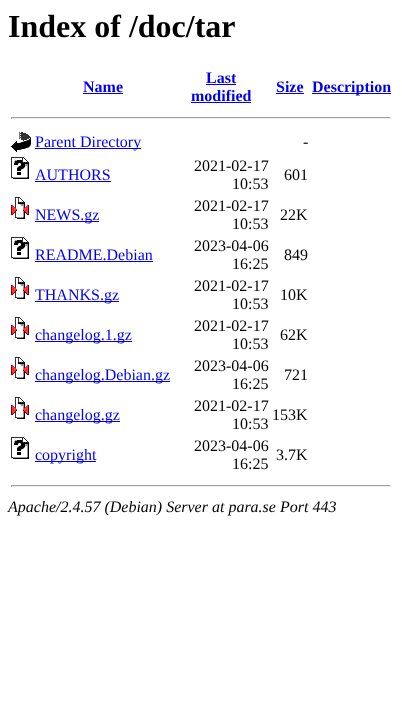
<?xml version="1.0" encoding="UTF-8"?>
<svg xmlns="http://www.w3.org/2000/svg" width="402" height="717">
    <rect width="100%" height="100%" fill="#FFFFFF"/>
    <text x="8" y="37" font-family="Liberation Serif" font-size="32" font-weight="700" fill="#000000">Index of /doc/tar</text>
    <text x="83" y="92" font-family="Liberation Serif" font-size="16" font-weight="700" fill="#0000EE">Name</text>
    <rect x="83" y="93" width="40" height="1" fill="#0000EE"/>
    <text x="206" y="83" font-family="Liberation Serif" font-size="16" font-weight="700" fill="#0000EE">Last</text>
    <rect x="206" y="84" width="30" height="1" fill="#0000EE"/>
    <text x="191" y="101" font-family="Liberation Serif" font-size="16" font-weight="700" fill="#0000EE">modified</text>
    <rect x="191" y="102" width="60" height="1" fill="#0000EE"/>
    <text x="276" y="92" font-family="Liberation Serif" font-size="16" font-weight="700" fill="#0000EE">Size</text>
    <rect x="276" y="93" width="28" height="1" fill="#0000EE"/>
    <rect x="312" y="93" width="79" height="1" fill="#0000EE"/>
    <text x="312" y="92" font-family="Liberation Serif" font-size="16" font-weight="700" fill="#0000EE">Description</text>
    <rect x="11" y="117" width="380" height="1" fill="#9F9F9F"/>
    <rect x="390" y="117" width="1" height="2" fill="#EEEEEE"/>
    <rect x="11" y="118" width="380" height="1" fill="#EEEEEE"/>
    <rect x="11" y="117" width="1" height="2" fill="#9F9F9F"/>
    <image x="11" y="132" width="20" height="20" href="img_01.png"/>
    <rect x="35" y="148" width="106" height="1" fill="#0000EE"/>
    <text x="35" y="147" font-family="Liberation Serif" font-size="16" fill="#0000EE">Parent Directory</text>
    <text x="303" y="147" font-family="Liberation Serif" font-size="16" fill="#000000">-</text>
    <image x="11" y="157" width="18" height="22" href="img_02.png"/>
    <text x="35" y="180" font-family="Liberation Serif" font-size="16" fill="#0000EE">AUTHORS</text>
    <rect x="35" y="181" width="76" height="1" fill="#0000EE"/>
    <text x="194" y="171" font-family="Liberation Serif" font-size="16" fill="#000000">2021-02-17</text>
    <text x="232" y="189" font-family="Liberation Serif" font-size="16" fill="#000000">10:53</text>
    <text x="284" y="180" font-family="Liberation Serif" font-size="16" fill="#000000">601</text>
    <image x="11" y="197" width="18" height="22" href="img_03.png"/>
    <rect x="35" y="221" width="64" height="1" fill="#0000EE"/>
    <text x="35" y="220" font-family="Liberation Serif" font-size="16" fill="#0000EE">NEWS.gz</text>
    <text x="194" y="211" font-family="Liberation Serif" font-size="16" fill="#000000">2021-02-17</text>
    <text x="232" y="229" font-family="Liberation Serif" font-size="16" fill="#000000">10:53</text>
    <text x="280" y="220" font-family="Liberation Serif" font-size="16" fill="#000000">22K</text>
    <image x="11" y="237" width="18" height="22" href="img_02.png"/>
    <text x="35" y="260" font-family="Liberation Serif" font-size="16" fill="#0000EE">README.Debian</text>
    <rect x="35" y="261" width="118" height="1" fill="#0000EE"/>
    <text x="194" y="251" font-family="Liberation Serif" font-size="16" fill="#000000">2023-04-06</text>
    <text x="232" y="269" font-family="Liberation Serif" font-size="16" fill="#000000">16:25</text>
    <text x="284" y="260" font-family="Liberation Serif" font-size="16" fill="#000000">849</text>
    <image x="11" y="277" width="18" height="22" href="img_03.png"/>
    <rect x="35" y="301" width="84" height="1" fill="#0000EE"/>
    <text x="35" y="300" font-family="Liberation Serif" font-size="16" fill="#0000EE">THANKS.gz</text>
    <text x="194" y="291" font-family="Liberation Serif" font-size="16" fill="#000000">2021-02-17</text>
    <text x="232" y="309" font-family="Liberation Serif" font-size="16" fill="#000000">10:53</text>
    <text x="280" y="300" font-family="Liberation Serif" font-size="16" fill="#000000">10K</text>
    <image x="11" y="317" width="18" height="22" href="img_03.png"/>
    <rect x="35" y="341" width="97" height="1" fill="#0000EE"/>
    <text x="35" y="340" font-family="Liberation Serif" font-size="16" fill="#0000EE">changelog.1.gz</text>
    <text x="194" y="331" font-family="Liberation Serif" font-size="16" fill="#000000">2021-02-17</text>
    <text x="232" y="349" font-family="Liberation Serif" font-size="16" fill="#000000">10:53</text>
    <text x="280" y="340" font-family="Liberation Serif" font-size="16" fill="#000000">62K</text>
    <image x="11" y="357" width="18" height="22" href="img_03.png"/>
    <rect x="35" y="381" width="135" height="1" fill="#0000EE"/>
    <text x="35" y="380" font-family="Liberation Serif" font-size="16" fill="#0000EE">changelog.Debian.gz</text>
    <text x="194" y="371" font-family="Liberation Serif" font-size="16" fill="#000000">2023-04-06</text>
    <text x="232" y="389" font-family="Liberation Serif" font-size="16" fill="#000000">16:25</text>
    <text x="284" y="380" font-family="Liberation Serif" font-size="16" fill="#000000">721</text>
    <image x="11" y="397" width="18" height="22" href="img_03.png"/>
    <rect x="35" y="421" width="85" height="1" fill="#0000EE"/>
    <text x="35" y="420" font-family="Liberation Serif" font-size="16" fill="#0000EE">changelog.gz</text>
    <text x="194" y="411" font-family="Liberation Serif" font-size="16" fill="#000000">2021-02-17</text>
    <text x="232" y="429" font-family="Liberation Serif" font-size="16" fill="#000000">10:53</text>
    <text x="272" y="420" font-family="Liberation Serif" font-size="16" fill="#000000">153K</text>
    <image x="11" y="437" width="18" height="22" href="img_02.png"/>
    <rect x="35" y="461" width="61" height="1" fill="#0000EE"/>
    <text x="35" y="460" font-family="Liberation Serif" font-size="16" fill="#0000EE">copyright</text>
    <text x="194" y="451" font-family="Liberation Serif" font-size="16" fill="#000000">2023-04-06</text>
    <text x="232" y="469" font-family="Liberation Serif" font-size="16" fill="#000000">16:25</text>
    <text x="276" y="460" font-family="Liberation Serif" font-size="16" fill="#000000">3.7K</text>
    <rect x="11" y="485" width="380" height="1" fill="#9F9F9F"/>
    <rect x="390" y="485" width="1" height="2" fill="#EEEEEE"/>
    <rect x="11" y="486" width="380" height="1" fill="#EEEEEE"/>
    <rect x="11" y="485" width="1" height="2" fill="#9F9F9F"/>
    <text x="8" y="512" font-family="Liberation Serif" font-size="16" font-style="italic" fill="#000000">Apache/2.4.57 (Debian) Server at para.se Port 443</text>
</svg>
